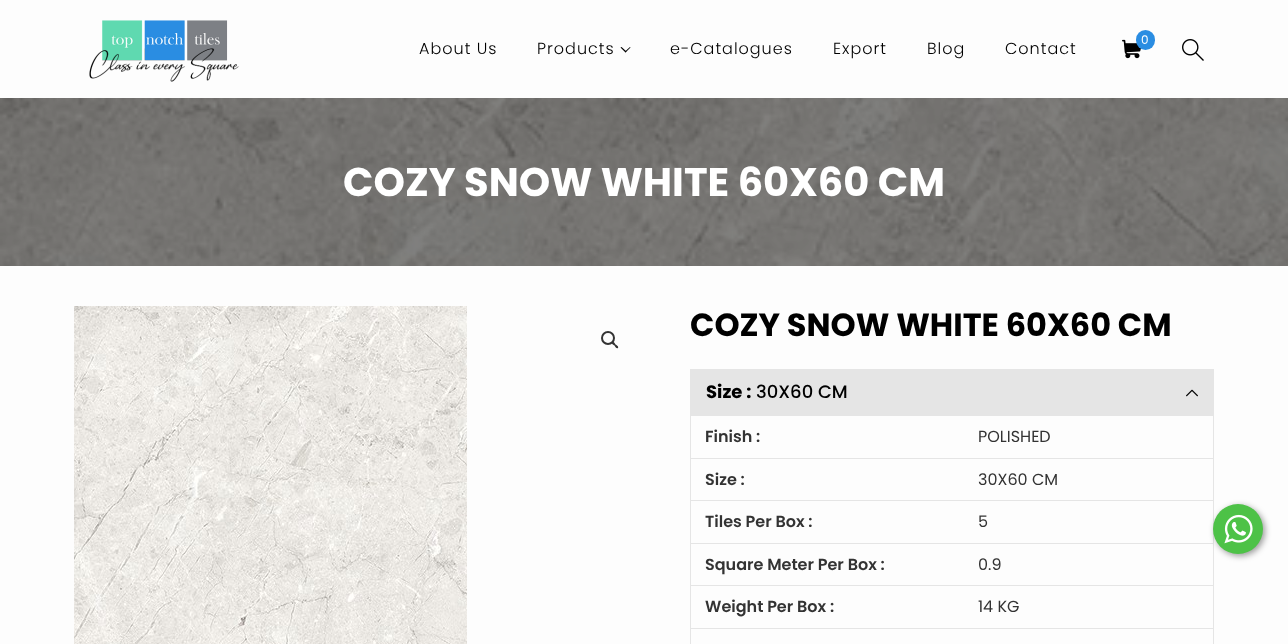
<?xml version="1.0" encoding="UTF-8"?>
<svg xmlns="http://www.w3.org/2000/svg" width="1288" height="644">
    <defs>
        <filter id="blur1" x="-50%" y="-200%" width="200%" height="500%"><feGaussianBlur stdDeviation="3"/></filter>
    </defs>
    <rect width="100%" height="100%" fill="#FDFDFD"/>
    <image x="89" y="20" width="150" height="62" href="img_01.png"/>
    <image x="1122" y="39" width="19" height="20" href="img_02.png"/>
    <rect x="1136" y="30" width="19" height="20" rx="9.5" fill="#2A8DE2"/>
    <text x="1141" y="44" font-family="Poppins" font-size="12" letter-spacing="1" fill="#FFFFFF">0</text>
    <text x="419" y="54" font-family="Poppins" font-size="16" font-weight="300" letter-spacing="1" fill="#000000">About Us</text>
    <text x="537" y="54" font-family="Poppins" font-size="16" font-weight="300" letter-spacing="1" fill="#000000">Products</text>
    <path d="M 630 47 L 630.5 47.5 L 625.5 52.5 L 625 51.5 Z" fill="#000000"/>
    <path d="M 621.5 47 L 626.5 51.5 L 625.5 52.5 L 620.5 47.5 Z" fill="#000000"/>
    <text x="670" y="54" font-family="Poppins" font-size="16" font-weight="300" letter-spacing="1" fill="#000000">e-Catalogues</text>
    <text x="833" y="54" font-family="Poppins" font-size="16" font-weight="300" letter-spacing="1" fill="#000000">Export</text>
    <text x="927" y="54" font-family="Poppins" font-size="16" font-weight="300" letter-spacing="1" fill="#000000">Blog</text>
    <text x="1005" y="54" font-family="Poppins" font-size="16" font-weight="300" letter-spacing="1" fill="#000000">Contact</text>
    <image x="1182" y="39" width="22" height="22" href="img_03.png"/>
    <image x="0" y="98" width="1288" height="168" href="img_04.png"/>
    <text x="343" y="196" font-family="Poppins" font-size="40" font-weight="700" fill="#FFFFFF">COZY SNOW WHITE 60X60 CM</text>
    <image x="74" y="306" width="393" height="338" href="img_05.png"/>
    <circle cx="608" cy="338" r="6" fill="none" stroke="#333333" stroke-width="2"/>
    <path d="M 612 342 C 613.5 341 615 343.5 615.5 344.5 C 616.5 345 619 346.5 618 348 C 616.5 349 615 346.5 614.5 345.5 C 613.5 345 611 343.5 612 342 Z" fill="#333333"/>
    <text x="690" y="336" font-family="Poppins" font-size="32" font-weight="700" fill="#000000">COZY SNOW WHITE 60X60 CM</text>
    <rect x="690" y="369" width="524" height="46" fill="#E5E5E5"/>
    <text x="706" y="398" font-family="Poppins" font-size="18" font-weight="700" fill="#000000">Size :</text>
    <text x="756" y="398" font-family="Poppins" font-size="18" font-weight="500" fill="#000000">30X60 CM</text>
    <image x="1186" y="389" width="12" height="8" href="img_06.png"/>
    <rect x="690.5" y="415.5" width="523" height="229" fill="none" stroke="#E5E5E5"/>
    <rect x="691" y="458" width="522" height="1" fill="#E5E5E5"/>
    <text x="705" y="442" font-family="Poppins" font-size="16" font-weight="600" fill="#333333">Finish :</text>
    <text x="978" y="442" font-family="Poppins" font-size="16" fill="#333333">POLISHED</text>
    <rect x="691" y="500" width="522" height="1" fill="#E5E5E5"/>
    <text x="705" y="485" font-family="Poppins" font-size="16" font-weight="600" fill="#333333">Size :</text>
    <text x="978" y="485" font-family="Poppins" font-size="16" fill="#333333">30X60 CM</text>
    <rect x="691" y="543" width="522" height="1" fill="#E5E5E5"/>
    <text x="705" y="527" font-family="Poppins" font-size="16" font-weight="600" fill="#333333">Tiles Per Box :</text>
    <text x="978" y="527" font-family="Poppins" font-size="16" fill="#333333">5</text>
    <rect x="691" y="585" width="522" height="1" fill="#E5E5E5"/>
    <text x="705" y="570" font-family="Poppins" font-size="16" font-weight="600" fill="#333333">Square Meter Per Box :</text>
    <text x="978" y="570" font-family="Poppins" font-size="16" fill="#333333">0.9</text>
    <rect x="691" y="628" width="522" height="1" fill="#E5E5E5"/>
    <text x="705" y="612" font-family="Poppins" font-size="16" font-weight="600" fill="#333333">Weight Per Box :</text>
    <text x="978" y="612" font-family="Poppins" font-size="16" fill="#333333">14 KG</text>
    <rect x="1215" y="506" width="50" height="50" rx="25" fill="#000000" fill-opacity="0.4" filter="url(#blur1)"/>
    <circle cx="1238" cy="529" r="25" fill="#4DC247"/>
    <image x="1224" y="514" width="29" height="30" href="img_07.png"/>
</svg>
